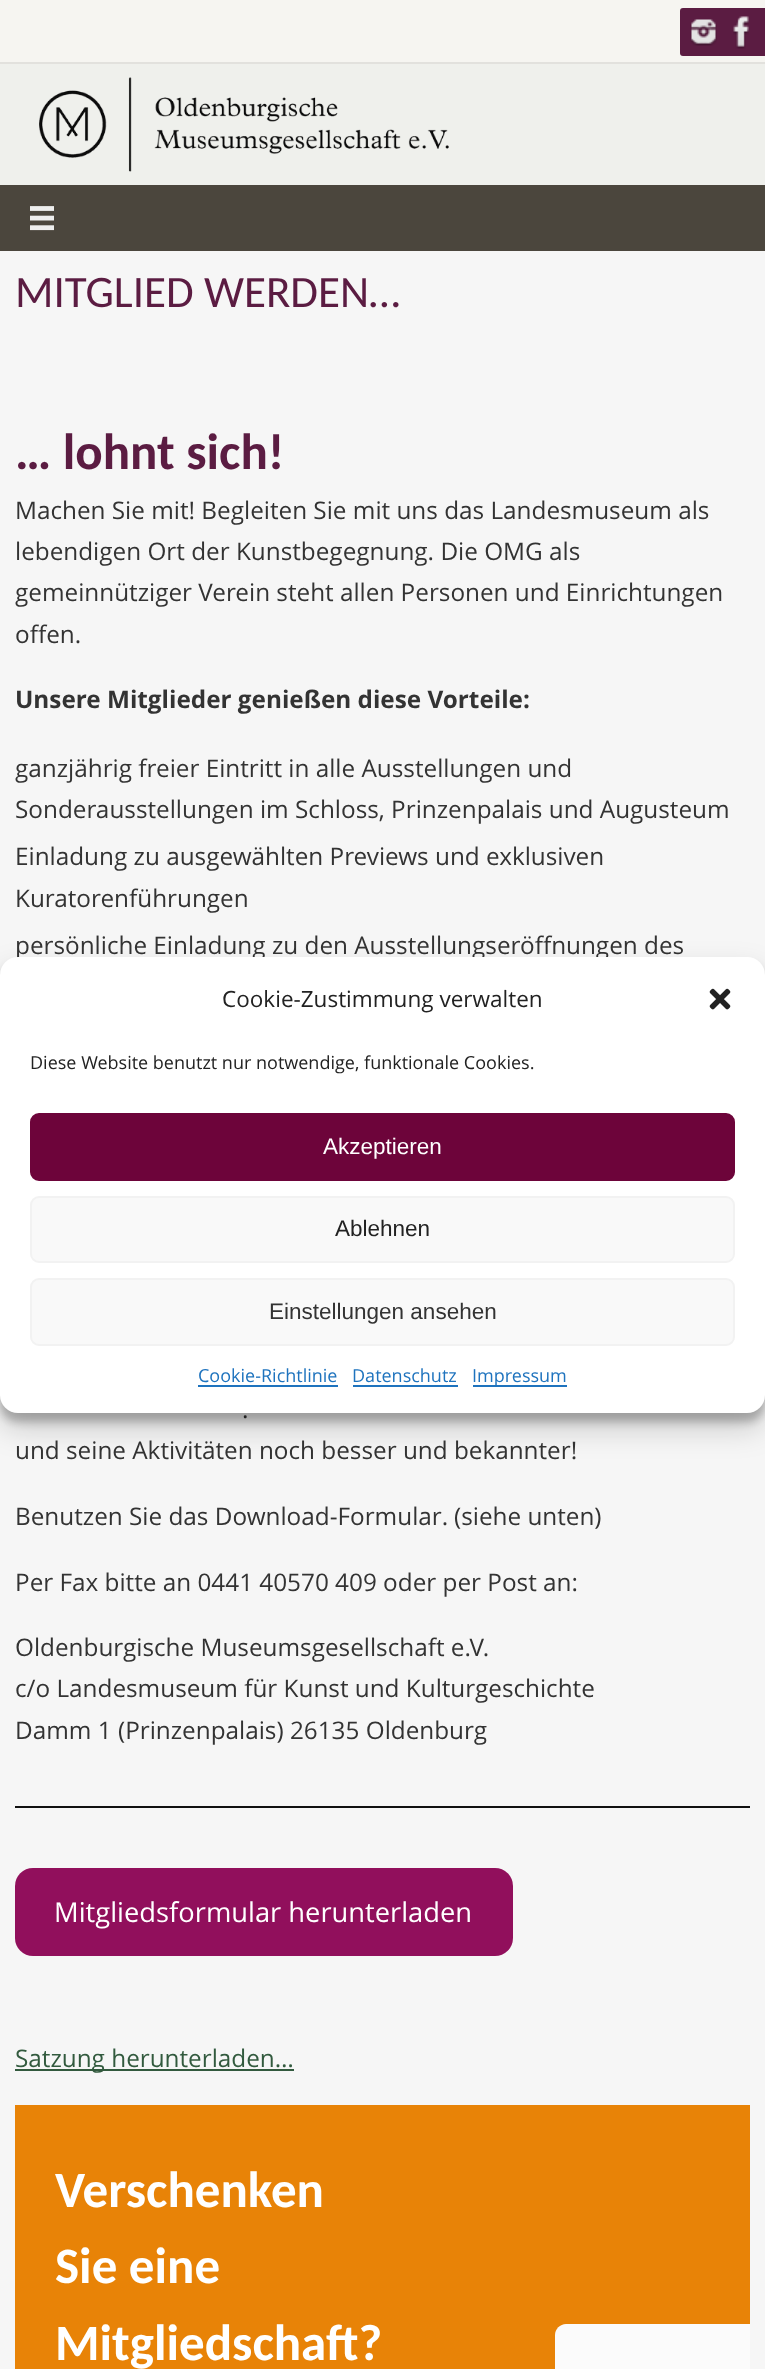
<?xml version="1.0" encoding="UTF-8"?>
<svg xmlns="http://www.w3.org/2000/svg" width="765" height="2369">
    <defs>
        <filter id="blur1" x="-50%" y="-200%" width="200%" height="500%"><feGaussianBlur stdDeviation="4.5"/></filter>
        <filter id="blur2" x="-50%" y="-200%" width="200%" height="500%"><feGaussianBlur stdDeviation="15"/></filter>
    </defs>
    <rect width="100%" height="100%" fill="#EFF0EC"/>
    <rect x="0" y="0" width="765" height="62" fill="#F6F5F1"/>
    <rect x="0" y="62" width="765" height="2" fill="#E2E1DD"/>
    <rect x="680" y="8" width="48" height="48" rx="3" fill="#5B1C42"/>
    <image x="690" y="19" width="27" height="27" href="img_01.png"/>
    <rect x="719" y="8" width="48" height="48" rx="3" fill="#5B1C42"/>
    <image x="733" y="16" width="16" height="33" href="img_02.png"/>
    <image x="39" y="77" width="410" height="95" href="img_03.png"/>
    <rect x="0" y="185" width="765" height="66" fill="#4B463D"/>
    <image x="30" y="206" width="24" height="25" href="img_04.png"/>
    <rect x="0" y="251" width="765" height="2118" fill="#F6F6F6"/>
    <text x="15" y="307" font-family="Carlito" font-size="45" fill="#5B1C42">MITGLIED WERDEN…</text>
    <text x="15" y="469" font-family="Carlito" font-size="51" font-weight="700" fill="#5B1C42">… lohnt sich!</text>
    <text font-family="Open Sans" font-size="24.3" fill="#333333">
        <tspan x="15" y="519">Machen Sie mit! Begleiten Sie mit uns das Landesmuseum als</tspan>
        <tspan x="15" y="560">lebendigen Ort der Kunstbegegnung. Die OMG als</tspan>
        <tspan x="15" y="601">gemeinnütziger Verein steht allen Personen und Einrichtungen</tspan>
        <tspan x="15" y="643">offen.</tspan>
    </text>
    <text x="15" y="708" font-family="Open Sans" font-size="24.3" font-weight="700" fill="#333333">Unsere Mitglieder genießen diese Vorteile:</text>
    <text font-family="Open Sans" font-size="24.3" fill="#333333">
        <tspan x="15" y="777">ganzjährig freier Eintritt in alle Ausstellungen und</tspan>
        <tspan x="15" y="818">Sonderausstellungen im Schloss, Prinzenpalais und Augusteum</tspan>
        <tspan x="15" y="865">Einladung zu ausgewählten Previews und exklusiven</tspan>
        <tspan x="15" y="907">Kuratorenführungen</tspan>
        <tspan x="15" y="954">persönliche Einladung zu den Ausstellungseröffnungen des</tspan>
    </text>
    <text x="242" y="1418" font-family="Open Sans" font-size="24.3" fill="#333333">.</text>
    <text x="15" y="1459" font-family="Open Sans" font-size="24.3" fill="#333333">und seine Aktivitäten noch besser und bekannter!</text>
    <text x="15" y="1525" font-family="Open Sans" font-size="24.3" fill="#333333">Benutzen Sie das Download-Formular.</text>
    <text x="454" y="1525" font-family="Open Sans" font-size="24.3" fill="#333333">(siehe unten)</text>
    <text x="15" y="1591" font-family="Open Sans" font-size="24.3" fill="#333333">Per Fax bitte an 0441 40570 409 oder per Post an:</text>
    <text font-family="Open Sans" font-size="24.3" fill="#333333">
        <tspan x="15" y="1656">Oldenburgische Museumsgesellschaft e.V.</tspan>
        <tspan x="15" y="1697">c/o Landesmuseum für Kunst und Kulturgeschichte</tspan>
        <tspan x="15" y="1739">Damm 1 (Prinzenpalais) 26135 Oldenburg</tspan>
    </text>
    <rect x="15" y="1806" width="735" height="2" fill="#111111"/>
    <rect x="15" y="1868" width="498" height="88" rx="18" fill="#910F5C"/>
    <text x="54" y="1922" font-family="Open Sans" font-size="27.3" fill="#FFFFFF">Mitgliedsformular herunterladen</text>
    <rect x="15" y="2069" width="279" height="2" fill="#325A3E"/>
    <text x="15" y="2067" font-family="Open Sans" font-size="24.3" fill="#325A3E">Satzung herunterladen…</text>
    <rect x="15" y="2105" width="735" height="264" fill="#E88307"/>
    <text font-family="Carlito" font-size="51" font-weight="700" fill="#FFFFFF">
        <tspan x="55" y="2207">Verschenken</tspan>
        <tspan x="55" y="2283">Sie eine</tspan>
        <tspan x="55" y="2360">Mitgliedschaft?</tspan>
    </text>
    <path d="M 566 2324 H 750 V 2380 H 566 C 560 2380 555 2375 555 2369 V 2335 C 555 2329 560 2324 566 2324 Z" fill="#FBFBFB"/>
    <rect x="0" y="966" width="765" height="456" rx="18" fill="#000000" fill-opacity="0.23" filter="url(#blur1)"/>
    <rect x="0" y="972" width="765" height="456" rx="18" fill="#000000" fill-opacity="0.19" filter="url(#blur2)"/>
    <rect x="0" y="957" width="765" height="456" rx="18" fill="#FFFFFF"/>
    <text x="222" y="1007" font-family="Open Sans" font-size="22.5" fill="#222222">Cookie-Zustimmung verwalten</text>
    <image x="709" y="988" width="22" height="22" href="img_05.png"/>
    <text x="30" y="1069" font-family="Open Sans" font-size="18" fill="#222222">Diese Website benutzt nur notwendige, funktionale Cookies.</text>
    <rect x="31" y="1114" width="703" height="66" rx="8" fill="#6D043A" stroke="#6D043A" stroke-width="2"/>
    <text x="323" y="1154" font-family="Liberation Sans" font-size="22.5" fill="#FFFFFF">Akzeptieren</text>
    <rect x="31" y="1197" width="703" height="65" rx="8" fill="#F9F9F9" stroke="#F2F2F2" stroke-width="2"/>
    <text x="335" y="1236" font-family="Liberation Sans" font-size="22.5" fill="#222222">Ablehnen</text>
    <rect x="31" y="1279" width="703" height="66" rx="8" fill="#F9F9F9" stroke="#F2F2F2" stroke-width="2"/>
    <text x="269" y="1319" font-family="Liberation Sans" font-size="22.5" fill="#333333">Einstellungen ansehen</text>
    <text x="198" y="1382" font-family="Open Sans" font-size="18" fill="#1E73BE">Cookie-Richtlinie</text>
    <rect x="198" y="1385" width="140" height="2" fill="#1E73BE"/>
    <text x="352" y="1382" font-family="Open Sans" font-size="18" fill="#1E73BE">Datenschutz</text>
    <rect x="353" y="1385" width="105" height="2" fill="#1E73BE"/>
    <rect x="473" y="1385" width="94" height="2" fill="#1E73BE"/>
    <text x="472" y="1382" font-family="Open Sans" font-size="18" fill="#1E73BE">Impressum</text>
</svg>
